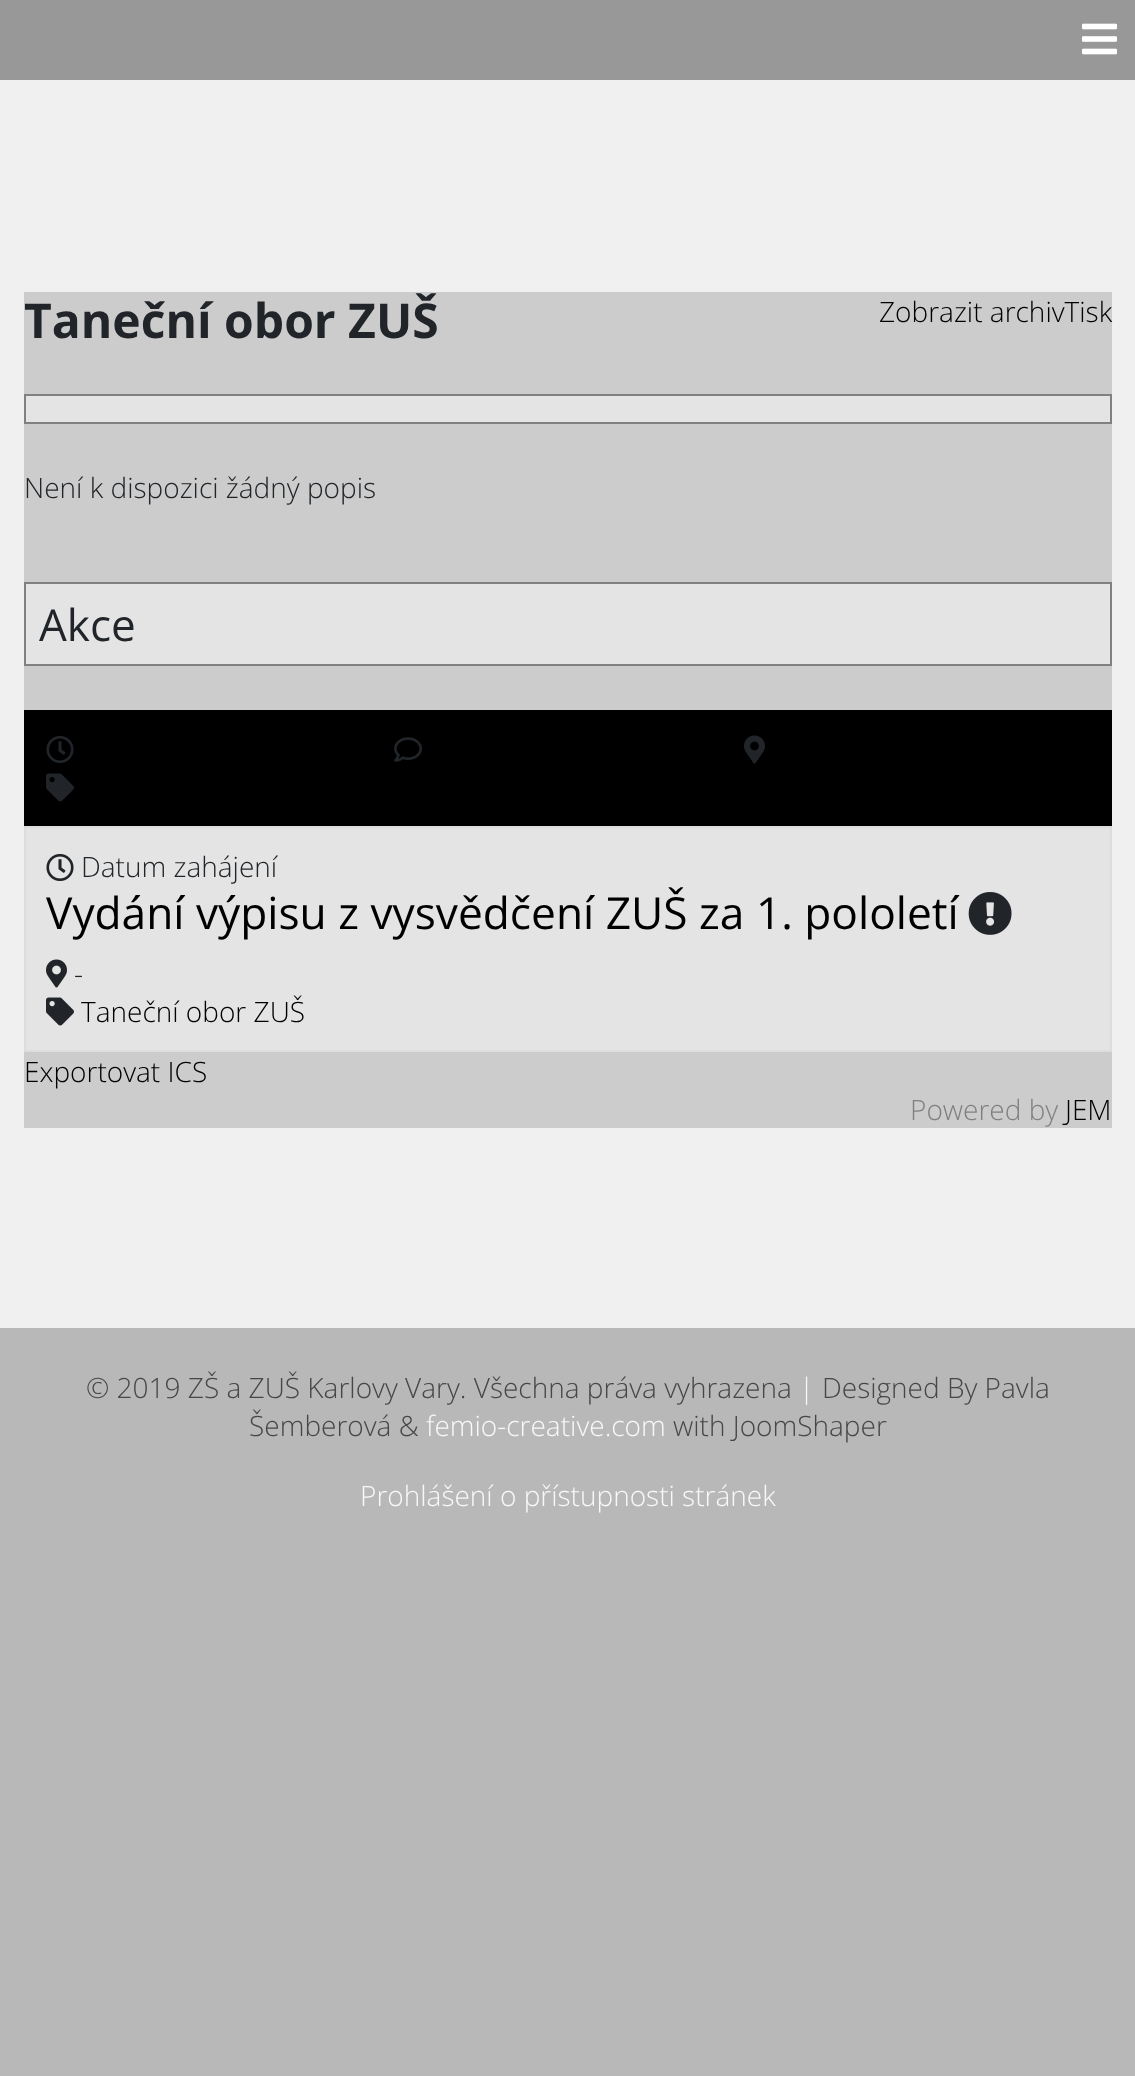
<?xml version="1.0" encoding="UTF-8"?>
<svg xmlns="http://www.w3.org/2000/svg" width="1135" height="2076">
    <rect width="100%" height="100%" fill="#B9B8B8"/>
    <rect x="0" y="0" width="1135" height="80" fill="#989898"/>
    <image x="1082" y="23" width="35" height="32" href="img_01.png"/>
    <rect x="0" y="80" width="1135" height="1248" fill="#F0F0F0"/>
    <rect x="24" y="292" width="1088" height="836" fill="#CCCCCC"/>
    <text x="24" y="338" font-family="Open Sans" font-size="48" font-weight="700" fill="#212529">Taneční obor ZUŠ</text>
    <text x="879" y="322" font-family="Open Sans" font-size="28" font-weight="300" fill="#000000">Zobrazit archivTisk</text>
    <rect x="25" y="395" width="1086" height="28" fill="#E4E4E4" stroke="#808080" stroke-width="2"/>
    <text x="24" y="498" font-family="Open Sans" font-size="28" font-weight="300" fill="#212529">Není k dispozici žádný popis</text>
    <rect x="25" y="583" width="1086" height="82" fill="#E4E4E4" stroke="#808080" stroke-width="2"/>
    <text x="39" y="641" font-family="Open Sans" font-size="44" fill="#212529">Akce</text>
    <rect x="24" y="710" width="1088" height="116" fill="#000000"/>
    <image x="46" y="736" width="28" height="27" href="img_02.png"/>
    <image x="394" y="737" width="28" height="25" href="img_03.png"/>
    <image x="744" y="735" width="21" height="29" href="img_04.png"/>
    <image x="46" y="773" width="28" height="29" href="img_05.png"/>
    <rect x="25" y="827" width="1086" height="224" fill="#E4E4E4" stroke="#DDDDDD" stroke-width="2"/>
    <image x="46" y="854" width="28" height="27" href="img_06.png"/>
    <text x="81" y="877" font-family="Open Sans" font-size="28" font-weight="300" fill="#212529">Datum zahájení</text>
    <text x="46" y="929" font-family="Open Sans" font-size="44.25" fill="#000000">Vydání výpisu z vysvědčení ZUŠ za 1. pololetí</text>
    <image x="968" y="892" width="44" height="43" href="img_07.png"/>
    <image x="46" y="959" width="21" height="29" href="img_08.png"/>
    <text x="74" y="984" font-family="Open Sans" font-size="28" font-weight="300" fill="#212529">-</text>
    <image x="46" y="997" width="28" height="29" href="img_09.png"/>
    <text x="81" y="1022" font-family="Open Sans" font-size="28" font-weight="300" fill="#000000">Taneční obor ZUŠ</text>
    <text x="24" y="1082" font-family="Open Sans" font-size="28" font-weight="300" fill="#000000">Exportovat ICS</text>
    <text x="910" y="1120" font-family="Open Sans" font-size="28" font-weight="300" fill="#808080">Powered by</text>
    <text x="1065" y="1120" font-family="Open Sans" font-size="28" font-weight="300" fill="#000000">JEM</text>
    <text x="86" y="1398" font-family="Open Sans" font-size="28" font-weight="300" fill="#474747">© 2019 ZŠ a ZUŠ Karlovy Vary. Všechna práva vyhrazena</text>
    <text x="799" y="1398" font-family="Open Sans" font-size="28" font-weight="300" fill="#F8F8F8">|</text>
    <text x="822" y="1398" font-family="Open Sans" font-size="28" font-weight="300" fill="#474747">Designed By Pavla</text>
    <text x="249" y="1436" font-family="Open Sans" font-size="28" font-weight="300" fill="#474747">Šemberová &amp;</text>
    <text x="426" y="1436" font-family="Open Sans" font-size="28" font-weight="300" fill="#F8F8F8">femio-creative.com</text>
    <text x="673" y="1436" font-family="Open Sans" font-size="28" font-weight="300" fill="#474747">with JoomShaper</text>
    <text x="360" y="1506" font-family="Open Sans" font-size="28" font-weight="300" fill="#F8F8F8">Prohlášení o přístupnosti stránek</text>
</svg>
